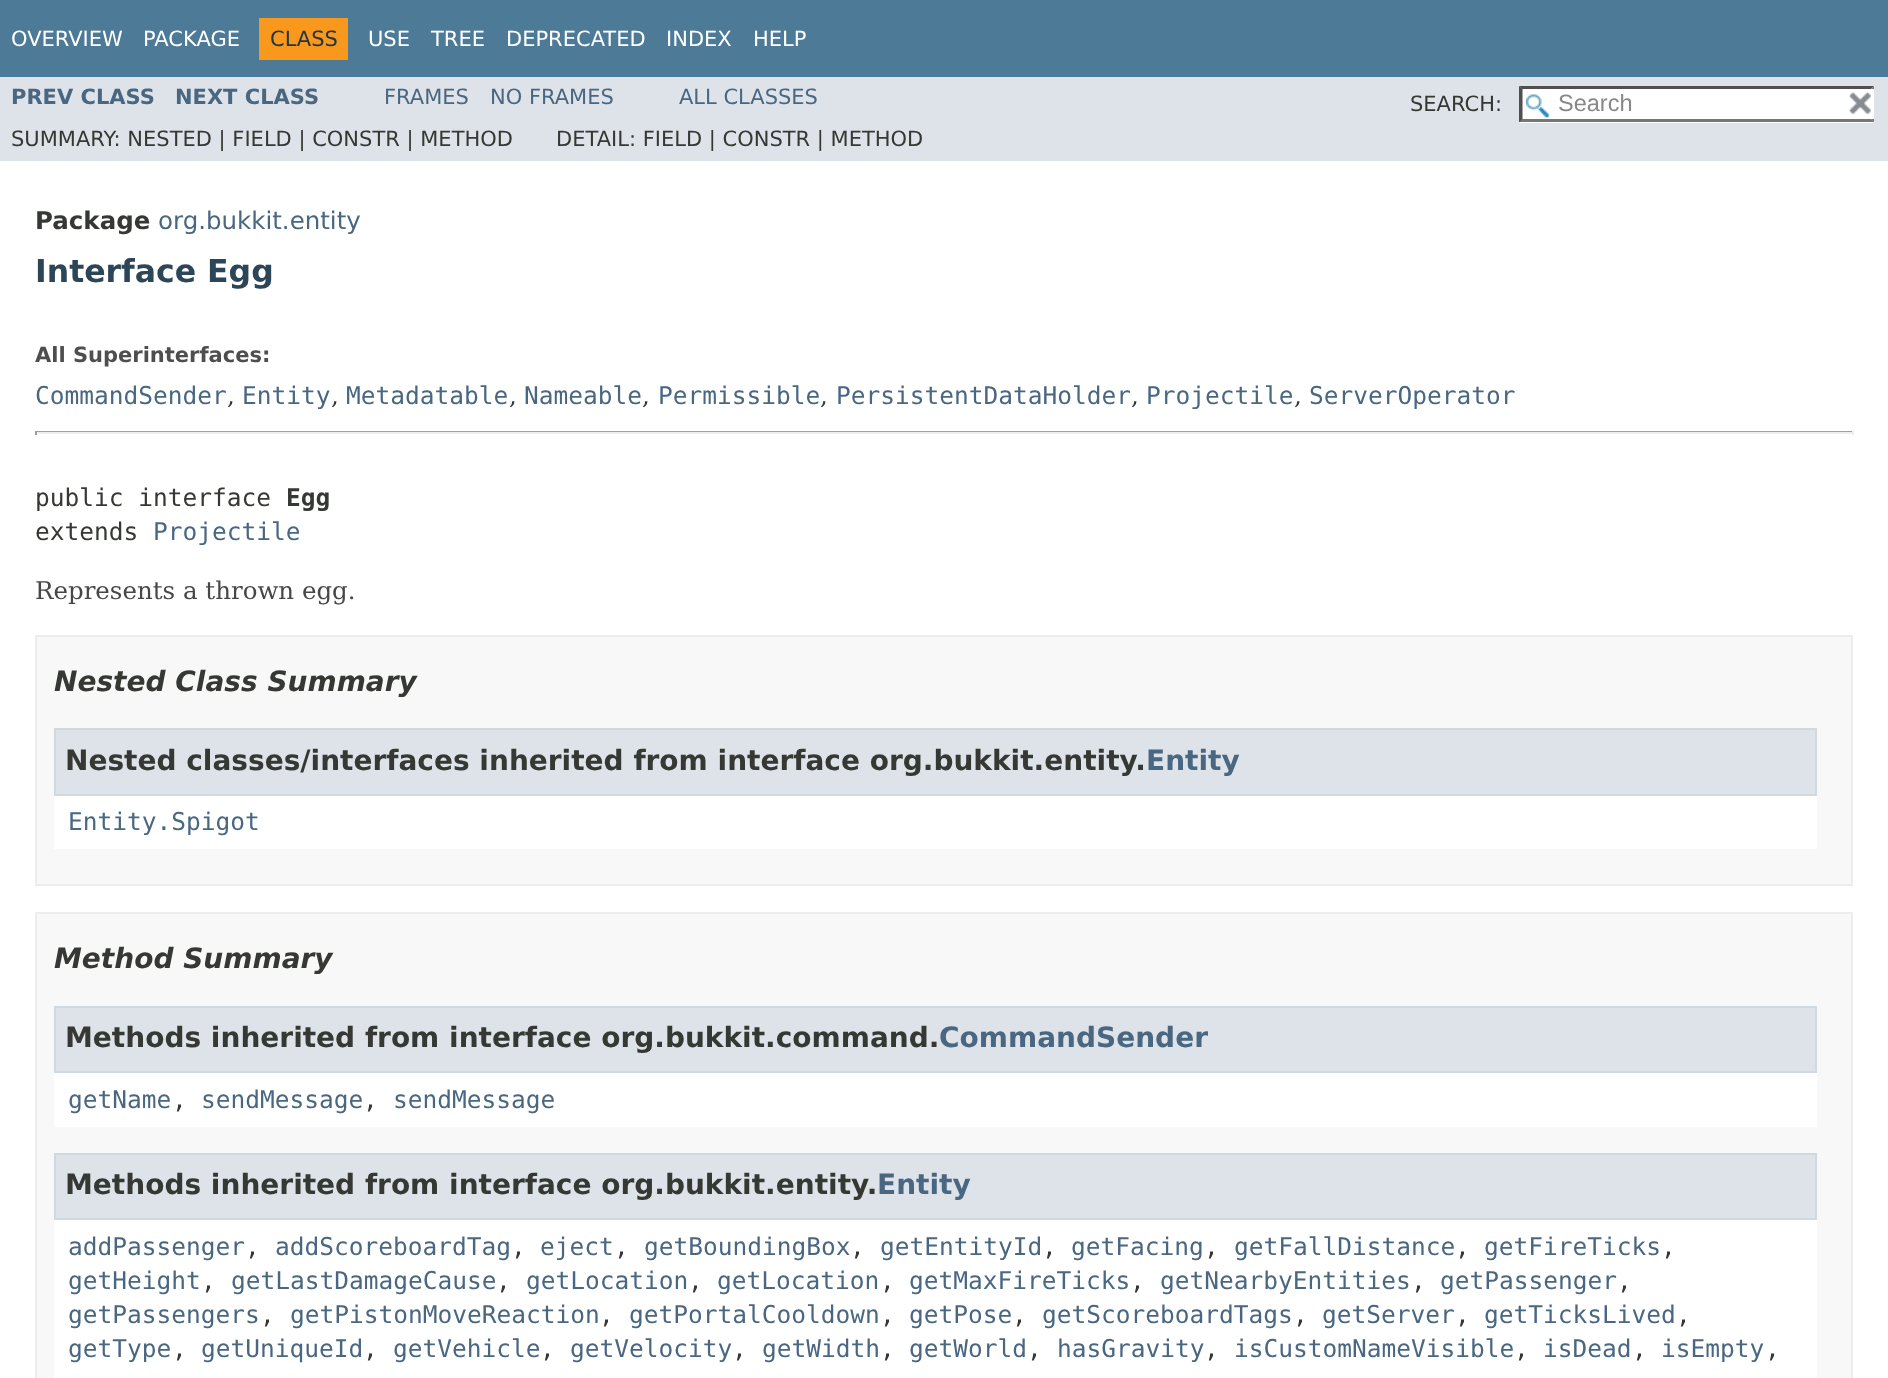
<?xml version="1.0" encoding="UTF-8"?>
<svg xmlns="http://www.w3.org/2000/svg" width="1888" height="1378">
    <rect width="100%" height="100%" fill="#FFFFFF"/>
    <rect x="0" y="0" width="1888" height="77" fill="#4D7A97"/>
    <text x="11" y="46" font-family="DejaVu Sans" font-size="21" fill="#FFFFFF">OVERVIEW</text>
    <text x="143" y="46" font-family="DejaVu Sans" font-size="21" fill="#FFFFFF">PACKAGE</text>
    <rect x="259" y="18" width="89" height="42" fill="#F8981D"/>
    <text x="270" y="46" font-family="DejaVu Sans" font-size="21" fill="#253441">CLASS</text>
    <text x="368" y="46" font-family="DejaVu Sans" font-size="21" fill="#FFFFFF">USE</text>
    <text x="431" y="46" font-family="DejaVu Sans" font-size="21" fill="#FFFFFF">TREE</text>
    <text x="506" y="46" font-family="DejaVu Sans" font-size="21" fill="#FFFFFF">DEPRECATED</text>
    <text x="666" y="46" font-family="DejaVu Sans" font-size="21" fill="#FFFFFF">INDEX</text>
    <text x="753" y="46" font-family="DejaVu Sans" font-size="21" fill="#FFFFFF">HELP</text>
    <rect x="0" y="77" width="1888" height="84" fill="#DEE3E9"/>
    <text x="11" y="104" font-family="DejaVu Sans" font-size="21" font-weight="700" fill="#4A6782">PREV CLASS</text>
    <text x="175" y="104" font-family="DejaVu Sans" font-size="21" font-weight="700" fill="#4A6782">NEXT CLASS</text>
    <text x="384" y="104" font-family="DejaVu Sans" font-size="21" fill="#4A6782">FRAMES</text>
    <text x="490" y="104" font-family="DejaVu Sans" font-size="21" fill="#4A6782">NO FRAMES</text>
    <text x="679" y="104" font-family="DejaVu Sans" font-size="21" fill="#4A6782">ALL CLASSES</text>
    <text x="1410" y="111" font-family="DejaVu Sans" font-size="21" fill="#353833">SEARCH:</text>
    <rect x="1519" y="86" width="355" height="37" fill="#FFFFFF"/>
    <image x="1526" y="94" width="23" height="24" href="img_01.png"/>
    <path d="M 1519 86 H 1874 L 1871 89 H 1522 Z" fill="#4F4F4F"/>
    <path d="M 1874 86 V 122.5 L 1871 119 V 89 Z" fill="#767676"/>
    <path d="M 1874 122 H 1519 L 1522 119 H 1871 Z" fill="#767676"/>
    <path d="M 1519 122.5 V 86 L 1522.5 89 V 119 Z" fill="#4F4F4F"/>
    <text x="1558" y="111" font-family="Liberation Sans" font-size="23.5" fill="#888888">Search</text>
    <rect x="1871" y="89" width="3" height="30" fill="#FFFFFF"/>
    <image x="1849" y="92" width="22" height="22" href="img_02.png"/>
    <text x="11" y="146" font-family="DejaVu Sans" font-size="21" fill="#353833">SUMMARY: NESTED | FIELD | CONSTR | METHOD</text>
    <text x="556" y="146" font-family="DejaVu Sans" font-size="21" fill="#353833">DETAIL: FIELD | CONSTR | METHOD</text>
    <text x="35" y="229" font-family="DejaVu Sans" font-size="24.5" font-weight="700" fill="#353833">Package</text>
    <text x="158" y="229" font-family="DejaVu Sans" font-size="24.5" fill="#4A6782">org.bukkit.entity</text>
    <text x="35" y="282" font-family="DejaVu Sans" font-size="31.5" font-weight="700" fill="#2C4557">Interface Egg</text>
    <text x="35" y="362" font-family="DejaVu Sans" font-size="21" font-weight="700" fill="#4E4E4E">All Superinterfaces:</text>
    <text x="35" y="404" font-family="DejaVu Sans Mono" font-size="24.5" fill="#4A6782">CommandSender</text>
    <text x="227" y="404" font-family="DejaVu Serif" font-size="24.5" fill="#353833">,</text>
    <text x="242" y="404" font-family="DejaVu Sans Mono" font-size="24.5" fill="#4A6782">Entity</text>
    <text x="331" y="404" font-family="DejaVu Serif" font-size="24.5" fill="#353833">,</text>
    <text x="346" y="404" font-family="DejaVu Sans Mono" font-size="24.5" fill="#4A6782">Metadatable</text>
    <text x="509" y="404" font-family="DejaVu Serif" font-size="24.5" fill="#353833">,</text>
    <text x="524" y="404" font-family="DejaVu Sans Mono" font-size="24.5" fill="#4A6782">Nameable</text>
    <text x="642" y="404" font-family="DejaVu Serif" font-size="24.5" fill="#353833">,</text>
    <text x="658" y="404" font-family="DejaVu Sans Mono" font-size="24.5" fill="#4A6782">Permissible</text>
    <text x="820" y="404" font-family="DejaVu Serif" font-size="24.5" fill="#353833">,</text>
    <text x="836" y="404" font-family="DejaVu Sans Mono" font-size="24.5" fill="#4A6782">PersistentDataHolder</text>
    <text x="1131" y="404" font-family="DejaVu Serif" font-size="24.5" fill="#353833">,</text>
    <text x="1146" y="404" font-family="DejaVu Sans Mono" font-size="24.5" fill="#4A6782">Projectile</text>
    <text x="1294" y="404" font-family="DejaVu Serif" font-size="24.5" fill="#353833">,</text>
    <text x="1309" y="404" font-family="DejaVu Sans Mono" font-size="24.5" fill="#4A6782">ServerOperator</text>
    <rect x="35" y="431" width="1818" height="1" fill="#9F9F9F"/>
    <rect x="1852" y="431" width="2" height="4" fill="#EEEEEE"/>
    <rect x="35" y="432" width="1818" height="2" fill="#EEEEEE"/>
    <rect x="35" y="431" width="2" height="4" fill="#9F9F9F"/>
    <text x="35" y="506" font-family="DejaVu Sans Mono" font-size="24.5" fill="#353833">public interface</text>
    <text x="286" y="506" font-family="DejaVu Sans Mono" font-size="24.5" font-weight="700" fill="#353833">Egg</text>
    <text x="35" y="540" font-family="DejaVu Sans Mono" font-size="24.5" fill="#353833">extends</text>
    <text x="153" y="540" font-family="DejaVu Sans Mono" font-size="24.5" fill="#4A6782">Projectile</text>
    <text x="35" y="599" font-family="DejaVu Serif" font-size="24.5" fill="#474747">Represents a thrown egg.</text>
    <rect x="36" y="636" width="1816" height="249" fill="#F8F8F8" stroke="#EDEDED" stroke-width="2"/>
    <text x="54" y="691" font-family="DejaVu Sans" font-size="28" font-weight="700" font-style="italic" fill="#353833">Nested Class Summary</text>
    <rect x="54" y="796" width="1763" height="53" fill="#FFFFFF"/>
    <rect x="55" y="729" width="1761" height="66" fill="#DEE3E9" stroke="#D0D9E0" stroke-width="2"/>
    <text x="65" y="770" font-family="DejaVu Sans" font-size="28" font-weight="700" fill="#353833">Nested classes/interfaces inherited from interface org.bukkit.entity.</text>
    <text x="1146" y="770" font-family="DejaVu Sans" font-size="28" font-weight="700" fill="#4A6782">Entity</text>
    <text x="68" y="830" font-family="DejaVu Sans Mono" font-size="24.5" fill="#4A6782">Entity.Spigot</text>
    <rect x="36" y="913" width="1816" height="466" fill="#F8F8F8" stroke="#EDEDED" stroke-width="2"/>
    <text x="54" y="968" font-family="DejaVu Sans" font-size="28" font-weight="700" font-style="italic" fill="#353833">Method Summary</text>
    <rect x="54" y="1073" width="1763" height="54" fill="#FFFFFF"/>
    <rect x="55" y="1007" width="1761" height="65" fill="#DEE3E9" stroke="#D0D9E0" stroke-width="2"/>
    <text x="65" y="1047" font-family="DejaVu Sans" font-size="28" font-weight="700" fill="#353833">Methods inherited from interface org.bukkit.command.</text>
    <text x="939" y="1047" font-family="DejaVu Sans" font-size="28" font-weight="700" fill="#4A6782">CommandSender</text>
    <text x="68" y="1108" font-family="DejaVu Sans Mono" font-size="24.5" fill="#4A6782">getName</text>
    <text x="172" y="1108" font-family="DejaVu Sans Mono" font-size="24.5" fill="#353833">,</text>
    <text x="201" y="1108" font-family="DejaVu Sans Mono" font-size="24.5" fill="#4A6782">sendMessage</text>
    <text x="363" y="1108" font-family="DejaVu Sans Mono" font-size="24.5" fill="#353833">,</text>
    <text x="393" y="1108" font-family="DejaVu Sans Mono" font-size="24.5" fill="#4A6782">sendMessage</text>
    <rect x="54" y="1220" width="1763" height="158" fill="#FFFFFF"/>
    <rect x="55" y="1154" width="1761" height="65" fill="#DEE3E9" stroke="#D0D9E0" stroke-width="2"/>
    <text x="65" y="1194" font-family="DejaVu Sans" font-size="28" font-weight="700" fill="#353833">Methods inherited from interface org.bukkit.entity.</text>
    <text x="877" y="1194" font-family="DejaVu Sans" font-size="28" font-weight="700" fill="#4A6782">Entity</text>
    <text x="68" y="1255" font-family="DejaVu Sans Mono" font-size="24.5" fill="#4A6782">addPassenger</text>
    <text x="245" y="1255" font-family="DejaVu Sans Mono" font-size="24.5" fill="#353833">,</text>
    <text x="275" y="1255" font-family="DejaVu Sans Mono" font-size="24.5" fill="#4A6782">addScoreboardTag</text>
    <text x="511" y="1255" font-family="DejaVu Sans Mono" font-size="24.5" fill="#353833">,</text>
    <text x="540" y="1255" font-family="DejaVu Sans Mono" font-size="24.5" fill="#4A6782">eject</text>
    <text x="614" y="1255" font-family="DejaVu Sans Mono" font-size="24.5" fill="#353833">,</text>
    <text x="644" y="1255" font-family="DejaVu Sans Mono" font-size="24.5" fill="#4A6782">getBoundingBox</text>
    <text x="850" y="1255" font-family="DejaVu Sans Mono" font-size="24.5" fill="#353833">,</text>
    <text x="880" y="1255" font-family="DejaVu Sans Mono" font-size="24.5" fill="#4A6782">getEntityId</text>
    <text x="1042" y="1255" font-family="DejaVu Sans Mono" font-size="24.5" fill="#353833">,</text>
    <text x="1071" y="1255" font-family="DejaVu Sans Mono" font-size="24.5" fill="#4A6782">getFacing</text>
    <text x="1204" y="1255" font-family="DejaVu Sans Mono" font-size="24.5" fill="#353833">,</text>
    <text x="1234" y="1255" font-family="DejaVu Sans Mono" font-size="24.5" fill="#4A6782">getFallDistance</text>
    <text x="1455" y="1255" font-family="DejaVu Sans Mono" font-size="24.5" fill="#353833">,</text>
    <text x="1484" y="1255" font-family="DejaVu Sans Mono" font-size="24.5" fill="#4A6782">getFireTicks</text>
    <text x="1661" y="1255" font-family="DejaVu Sans Mono" font-size="24.5" fill="#353833">,</text>
    <text x="68" y="1289" font-family="DejaVu Sans Mono" font-size="24.5" fill="#4A6782">getHeight</text>
    <text x="201" y="1289" font-family="DejaVu Sans Mono" font-size="24.5" fill="#353833">,</text>
    <text x="231" y="1289" font-family="DejaVu Sans Mono" font-size="24.5" fill="#4A6782">getLastDamageCause</text>
    <text x="496" y="1289" font-family="DejaVu Sans Mono" font-size="24.5" fill="#353833">,</text>
    <text x="526" y="1289" font-family="DejaVu Sans Mono" font-size="24.5" fill="#4A6782">getLocation</text>
    <text x="688" y="1289" font-family="DejaVu Sans Mono" font-size="24.5" fill="#353833">,</text>
    <text x="717" y="1289" font-family="DejaVu Sans Mono" font-size="24.5" fill="#4A6782">getLocation</text>
    <text x="880" y="1289" font-family="DejaVu Sans Mono" font-size="24.5" fill="#353833">,</text>
    <text x="909" y="1289" font-family="DejaVu Sans Mono" font-size="24.5" fill="#4A6782">getMaxFireTicks</text>
    <text x="1130" y="1289" font-family="DejaVu Sans Mono" font-size="24.5" fill="#353833">,</text>
    <text x="1160" y="1289" font-family="DejaVu Sans Mono" font-size="24.5" fill="#4A6782">getNearbyEntities</text>
    <text x="1411" y="1289" font-family="DejaVu Sans Mono" font-size="24.5" fill="#353833">,</text>
    <text x="1440" y="1289" font-family="DejaVu Sans Mono" font-size="24.5" fill="#4A6782">getPassenger</text>
    <text x="1617" y="1289" font-family="DejaVu Sans Mono" font-size="24.5" fill="#353833">,</text>
    <text x="68" y="1323" font-family="DejaVu Sans Mono" font-size="24.5" fill="#4A6782">getPassengers</text>
    <text x="260" y="1323" font-family="DejaVu Sans Mono" font-size="24.5" fill="#353833">,</text>
    <text x="290" y="1323" font-family="DejaVu Sans Mono" font-size="24.5" fill="#4A6782">getPistonMoveReaction</text>
    <text x="599" y="1323" font-family="DejaVu Sans Mono" font-size="24.5" fill="#353833">,</text>
    <text x="629" y="1323" font-family="DejaVu Sans Mono" font-size="24.5" fill="#4A6782">getPortalCooldown</text>
    <text x="880" y="1323" font-family="DejaVu Sans Mono" font-size="24.5" fill="#353833">,</text>
    <text x="909" y="1323" font-family="DejaVu Sans Mono" font-size="24.5" fill="#4A6782">getPose</text>
    <text x="1012" y="1323" font-family="DejaVu Sans Mono" font-size="24.5" fill="#353833">,</text>
    <text x="1042" y="1323" font-family="DejaVu Sans Mono" font-size="24.5" fill="#4A6782">getScoreboardTags</text>
    <text x="1293" y="1323" font-family="DejaVu Sans Mono" font-size="24.5" fill="#353833">,</text>
    <text x="1322" y="1323" font-family="DejaVu Sans Mono" font-size="24.5" fill="#4A6782">getServer</text>
    <text x="1455" y="1323" font-family="DejaVu Sans Mono" font-size="24.5" fill="#353833">,</text>
    <text x="1484" y="1323" font-family="DejaVu Sans Mono" font-size="24.5" fill="#4A6782">getTicksLived</text>
    <text x="1676" y="1323" font-family="DejaVu Sans Mono" font-size="24.5" fill="#353833">,</text>
    <text x="68" y="1357" font-family="DejaVu Sans Mono" font-size="24.5" fill="#4A6782">getType</text>
    <text x="172" y="1357" font-family="DejaVu Sans Mono" font-size="24.5" fill="#353833">,</text>
    <text x="201" y="1357" font-family="DejaVu Sans Mono" font-size="24.5" fill="#4A6782">getUniqueId</text>
    <text x="363" y="1357" font-family="DejaVu Sans Mono" font-size="24.5" fill="#353833">,</text>
    <text x="393" y="1357" font-family="DejaVu Sans Mono" font-size="24.5" fill="#4A6782">getVehicle</text>
    <text x="540" y="1357" font-family="DejaVu Sans Mono" font-size="24.5" fill="#353833">,</text>
    <text x="570" y="1357" font-family="DejaVu Sans Mono" font-size="24.5" fill="#4A6782">getVelocity</text>
    <text x="732" y="1357" font-family="DejaVu Sans Mono" font-size="24.5" fill="#353833">,</text>
    <text x="762" y="1357" font-family="DejaVu Sans Mono" font-size="24.5" fill="#4A6782">getWidth</text>
    <text x="880" y="1357" font-family="DejaVu Sans Mono" font-size="24.5" fill="#353833">,</text>
    <text x="909" y="1357" font-family="DejaVu Sans Mono" font-size="24.5" fill="#4A6782">getWorld</text>
    <text x="1027" y="1357" font-family="DejaVu Sans Mono" font-size="24.5" fill="#353833">,</text>
    <text x="1057" y="1357" font-family="DejaVu Sans Mono" font-size="24.5" fill="#4A6782">hasGravity</text>
    <text x="1204" y="1357" font-family="DejaVu Sans Mono" font-size="24.5" fill="#353833">,</text>
    <text x="1234" y="1357" font-family="DejaVu Sans Mono" font-size="24.5" fill="#4A6782">isCustomNameVisible</text>
    <text x="1514" y="1357" font-family="DejaVu Sans Mono" font-size="24.5" fill="#353833">,</text>
    <text x="1543" y="1357" font-family="DejaVu Sans Mono" font-size="24.5" fill="#4A6782">isDead</text>
    <text x="1632" y="1357" font-family="DejaVu Sans Mono" font-size="24.5" fill="#353833">,</text>
    <text x="1661" y="1357" font-family="DejaVu Sans Mono" font-size="24.5" fill="#4A6782">isEmpty</text>
    <text x="1765" y="1357" font-family="DejaVu Sans Mono" font-size="24.5" fill="#353833">,</text>
</svg>
